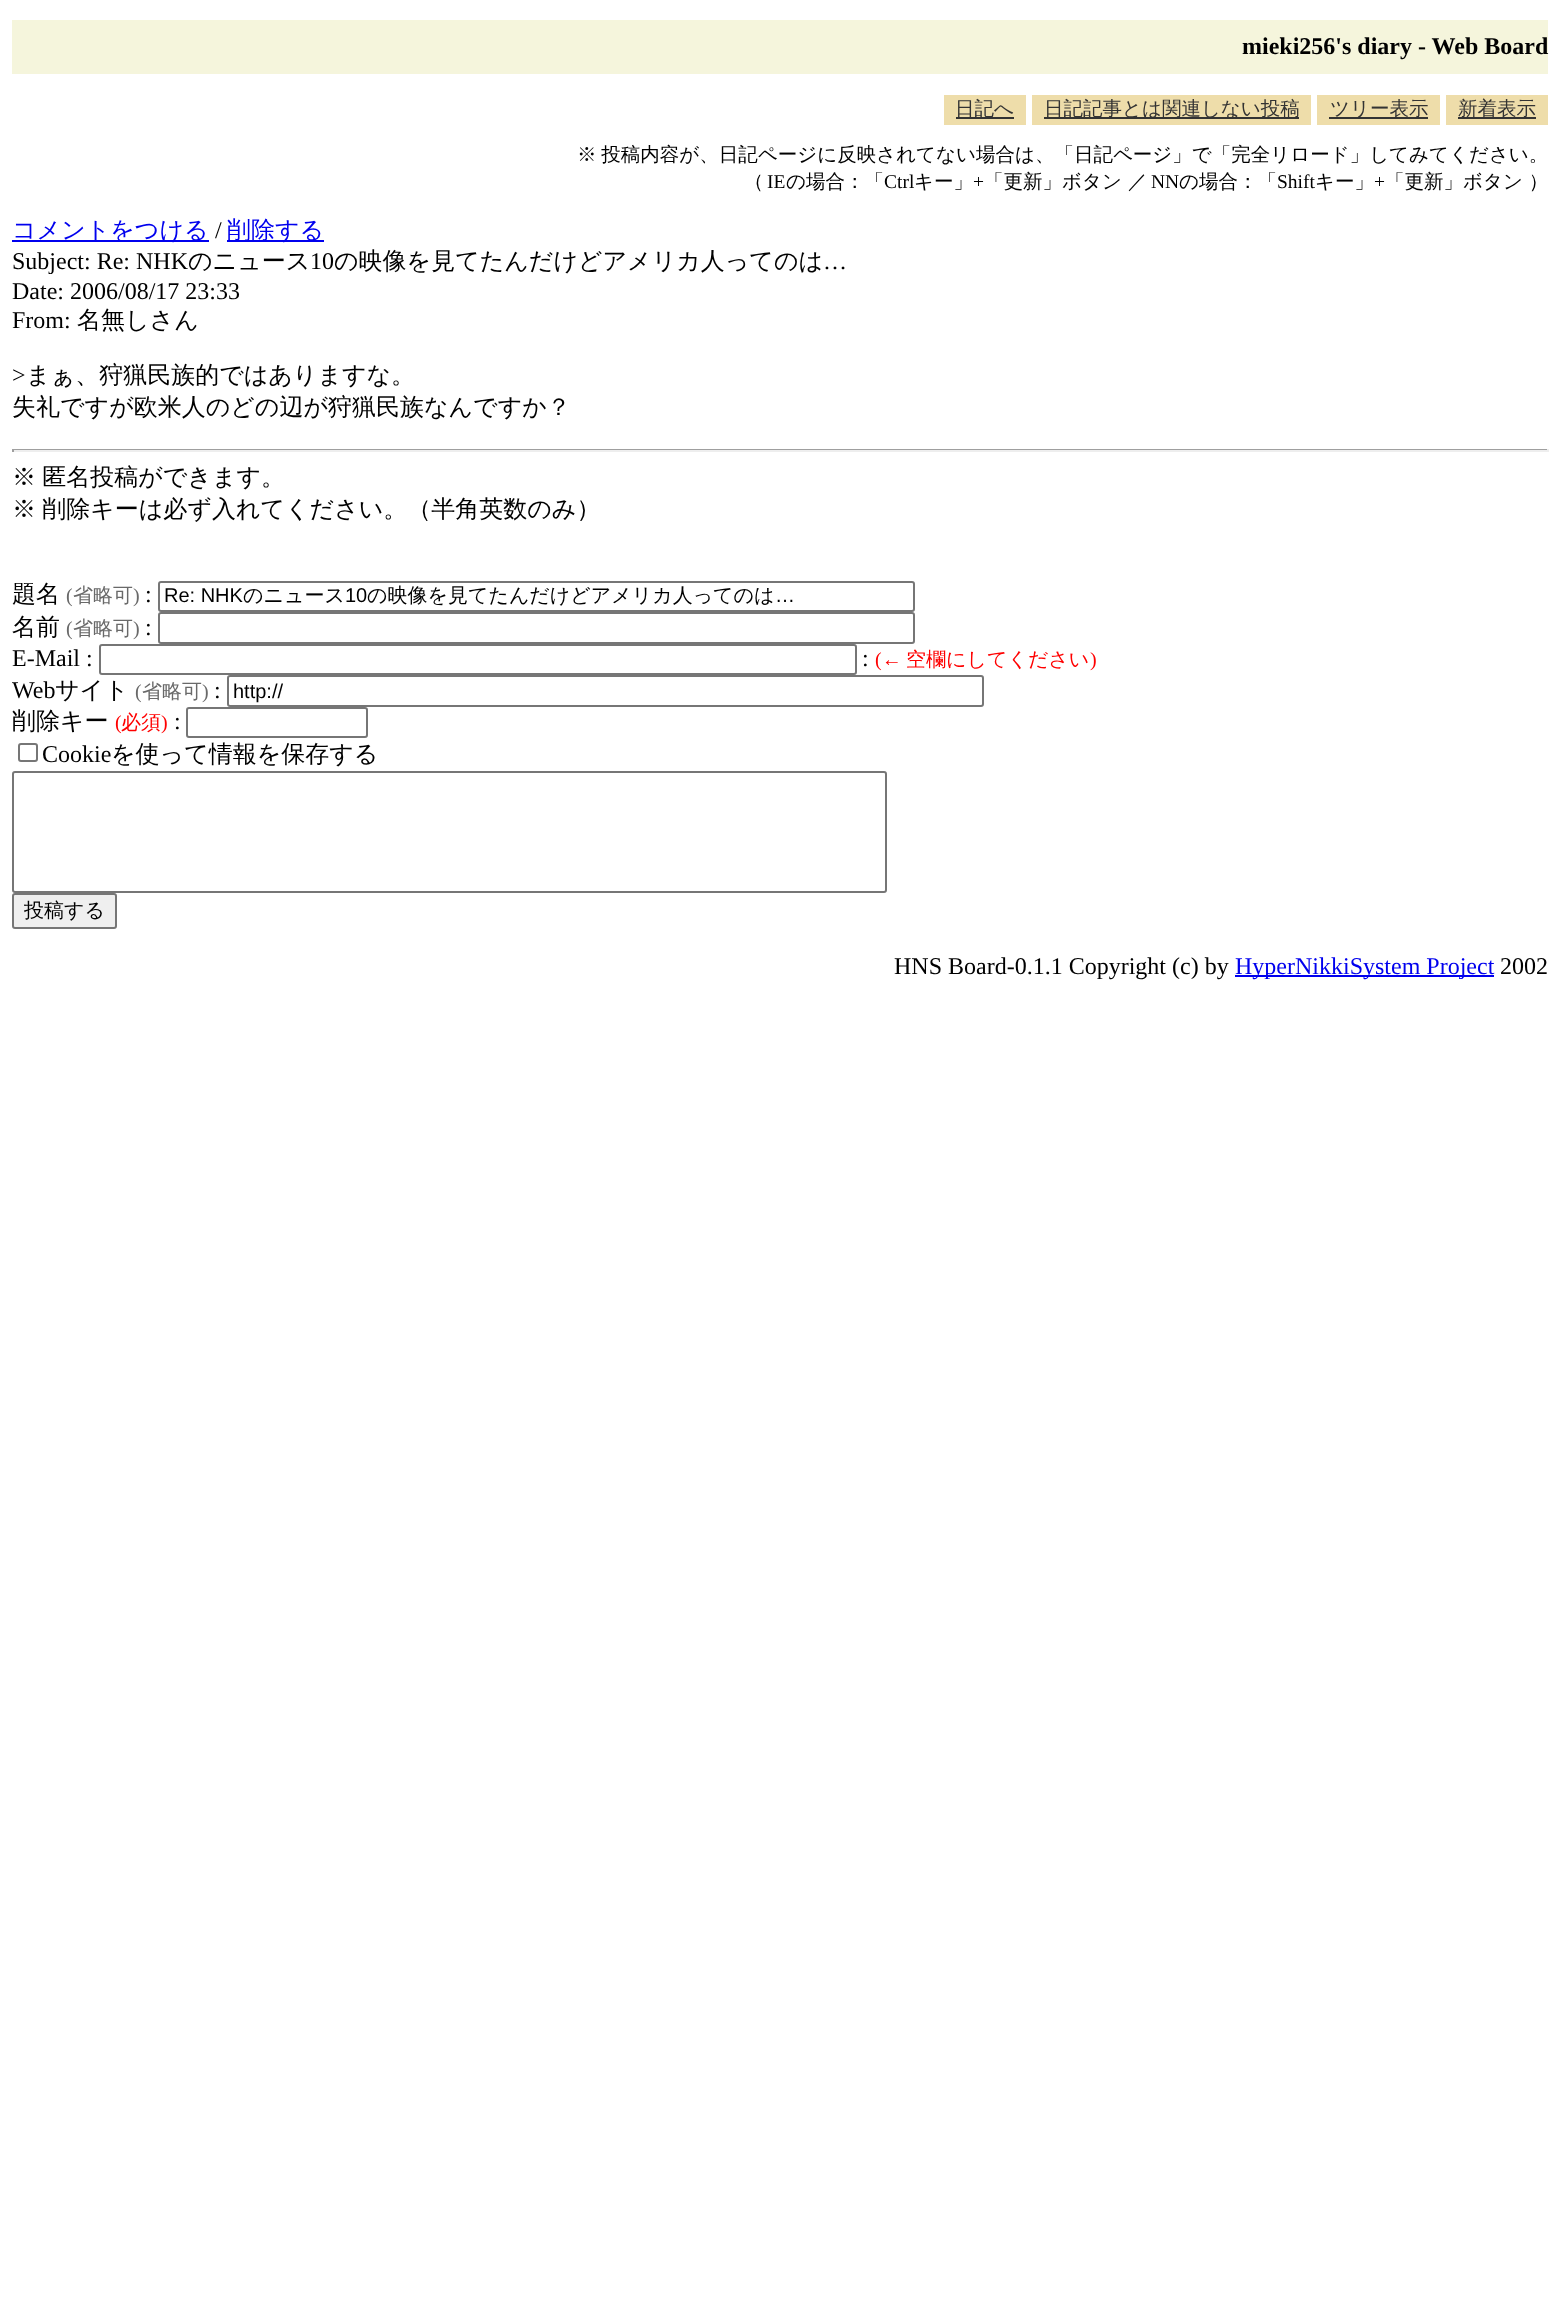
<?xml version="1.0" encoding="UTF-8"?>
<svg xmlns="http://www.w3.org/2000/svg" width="1559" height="2303">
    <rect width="100%" height="100%" fill="#FFFFFF"/>
    <rect x="12" y="20" width="1536" height="54" fill="#F5F5DC"/>
    <text x="1242" y="54" font-family="Liberation Serif" font-size="24" font-weight="700" fill="#000000">mieki256's diary - Web Board</text>
    <rect x="944" y="95" width="82" height="30" fill="#EEDDAA"/>
    <rect x="956" y="117" width="58" height="2" fill="#333333"/>
    <text x="955" y="115" font-family="WenQuanYi Zen Hei" font-size="19.5" font-weight="500" fill="#333333">日記へ</text>
    <rect x="1032" y="95" width="279" height="30" fill="#EEDDAA"/>
    <rect x="1044" y="117" width="255" height="2" fill="#333333"/>
    <text x="1044" y="115" font-family="WenQuanYi Zen Hei" font-size="19.5" font-weight="500" fill="#333333">日記記事とは関連しない投稿</text>
    <rect x="1317" y="95" width="123" height="30" fill="#EEDDAA"/>
    <rect x="1329" y="117" width="99" height="2" fill="#333333"/>
    <text x="1330" y="115" font-family="WenQuanYi Zen Hei" font-size="19.5" font-weight="500" fill="#333333">ツリー表示</text>
    <rect x="1446" y="95" width="102" height="30" fill="#EEDDAA"/>
    <rect x="1458" y="117" width="78" height="2" fill="#333333"/>
    <text x="1458" y="115" font-family="WenQuanYi Zen Hei" font-size="19.5" font-weight="500" fill="#333333">新着表示</text>
    <text x="577" y="161" word-spacing="-1" font-family="WenQuanYi Zen Hei" font-size="19.5" font-weight="500" fill="#000000">※ 投稿内容が、日記ページに反映されてない場合は、「日記ページ」で「完全リロード」してみてください。</text>
    <text x="744" y="188" font-family="WenQuanYi Zen Hei" font-size="19.5" font-weight="500" fill="#000000">（</text>
    <text x="767" y="188" font-family="Liberation Serif" font-size="19.5" fill="#000000">IE</text>
    <text x="786" y="188" font-family="WenQuanYi Zen Hei" font-size="19.5" font-weight="500" fill="#000000">の場合：「</text>
    <text x="884" y="188" font-family="Liberation Serif" font-size="19.5" fill="#000000">Ctrl</text>
    <text x="914" y="188" font-family="WenQuanYi Zen Hei" font-size="19.5" font-weight="500" fill="#000000">キー」</text>
    <text x="973" y="188" font-family="Liberation Serif" font-size="19.5" fill="#000000">+</text>
    <text x="984" y="188" font-family="WenQuanYi Zen Hei" font-size="19.5" font-weight="500" fill="#000000">「更新」ボタン ／</text>
    <text x="1151" y="188" font-family="Liberation Serif" font-size="19.5" fill="#000000">NN</text>
    <text x="1179" y="188" font-family="WenQuanYi Zen Hei" font-size="19.5" font-weight="500" fill="#000000">の場合：「</text>
    <text x="1277" y="188" font-family="Liberation Serif" font-size="19.5" fill="#000000">Shift</text>
    <text x="1315" y="188" font-family="WenQuanYi Zen Hei" font-size="19.5" font-weight="500" fill="#000000">キー」</text>
    <text x="1374" y="188" font-family="Liberation Serif" font-size="19.5" fill="#000000">+</text>
    <text x="1385" y="188" font-family="WenQuanYi Zen Hei" font-size="19.5" font-weight="500" fill="#000000">「更新」ボタン ）</text>
    <rect x="12" y="240" width="197" height="2" fill="#0000EE"/>
    <text x="12" y="238" font-family="WenQuanYi Zen Hei" font-size="24" font-weight="500" fill="#0000EE">コメントをつける</text>
    <text x="215" y="238" font-family="Liberation Serif" font-size="24" fill="#000000">/</text>
    <rect x="227" y="240" width="97" height="2" fill="#0000EE"/>
    <text x="227" y="238" font-family="WenQuanYi Zen Hei" font-size="24" font-weight="500" fill="#0000EE">削除する</text>
    <text x="12" y="269" font-family="Liberation Serif" font-size="24" fill="#000000">Subject: Re: NHK</text>
    <text x="188" y="269" font-family="WenQuanYi Zen Hei" font-size="24" font-weight="500" fill="#000000">のニュース</text>
    <text x="310" y="269" font-family="Liberation Serif" font-size="24" fill="#000000">10</text>
    <text x="334" y="269" font-family="WenQuanYi Zen Hei" font-size="24" font-weight="500" fill="#000000">の映像を見てたんだけどアメリカ人ってのは</text>
    <text x="823" y="269" font-family="Liberation Serif" font-size="24" fill="#000000">…</text>
    <text font-family="Liberation Serif" font-size="24" fill="#000000">
        <tspan x="12" y="299">Date: 2006/08/17 23:33</tspan>
        <tspan x="12" y="328">From:</tspan>
    </text>
    <text x="77" y="328" font-family="WenQuanYi Zen Hei" font-size="24" font-weight="500" fill="#000000">名無しさん</text>
    <text x="12" y="383" font-family="Liberation Serif" font-size="24" fill="#000000">&gt;</text>
    <text x="26" y="383" font-family="WenQuanYi Zen Hei" font-size="24" font-weight="500" fill="#000000">まぁ、狩猟民族的ではありますな。</text>
    <text x="12" y="415" font-family="WenQuanYi Zen Hei" font-size="24" font-weight="500" fill="#000000">失礼ですが欧米人のどの辺が狩猟民族なんですか？</text>
    <rect x="12" y="449" width="1536" height="1" fill="#9F9F9F"/>
    <rect x="1547" y="449" width="2" height="3" fill="#EEEEEE"/>
    <rect x="12" y="450" width="1536" height="2" fill="#EEEEEE"/>
    <rect x="12" y="449" width="2" height="3" fill="#9F9F9F"/>
    <text font-family="WenQuanYi Zen Hei" font-size="24" font-weight="500" fill="#000000">
        <tspan x="12" y="485" word-spacing="-1">※ 匿名投稿ができます。</tspan>
        <tspan x="12" y="517" word-spacing="-1">※ 削除キーは必ず入れてください。（半角英数のみ）</tspan>
    </text>
    <text x="12" y="602" font-family="WenQuanYi Zen Hei" font-size="24" font-weight="500" fill="#000000">題名</text>
    <text x="66" y="602" font-family="Liberation Serif" font-size="20" fill="#696969">(</text>
    <text x="73" y="602" font-family="WenQuanYi Zen Hei" font-size="20" font-weight="500" fill="#696969">省略可</text>
    <text x="133" y="602" font-family="Liberation Serif" font-size="20" fill="#696969">)</text>
    <text x="145" y="602" font-family="Liberation Serif" font-size="24" fill="#000000">:</text>
    <rect x="159" y="582" width="755" height="29" rx="2" fill="none" stroke="#767676" stroke-width="2"/>
    <text x="164" y="602" font-family="Liberation Sans" font-size="20" fill="#000000">Re: NHK</text>
    <text x="243" y="602" font-family="WenQuanYi Zen Hei" font-size="20" font-weight="500" fill="#000000">のニュース</text>
    <text x="345" y="602" font-family="Liberation Sans" font-size="20" fill="#000000">10</text>
    <text x="367" y="602" font-family="WenQuanYi Zen Hei" font-size="20" font-weight="500" fill="#000000">の映像を見てたんだけどアメリカ人ってのは</text>
    <text x="775" y="602" font-family="Liberation Sans" font-size="20" fill="#000000">…</text>
    <text x="12" y="635" font-family="WenQuanYi Zen Hei" font-size="24" font-weight="500" fill="#000000">名前</text>
    <text x="66" y="635" font-family="Liberation Serif" font-size="20" fill="#696969">(</text>
    <text x="73" y="635" font-family="WenQuanYi Zen Hei" font-size="20" font-weight="500" fill="#696969">省略可</text>
    <text x="133" y="635" font-family="Liberation Serif" font-size="20" fill="#696969">)</text>
    <text x="145" y="635" font-family="Liberation Serif" font-size="24" fill="#000000">:</text>
    <rect x="159" y="613" width="755" height="30" rx="2" fill="none" stroke="#767676" stroke-width="2"/>
    <text x="12" y="666" font-family="Liberation Serif" font-size="24" fill="#000000">E-Mail :</text>
    <rect x="100" y="645" width="756" height="29" rx="2" fill="none" stroke="#767676" stroke-width="2"/>
    <text x="862" y="666" font-family="Liberation Serif" font-size="24" fill="#000000">:</text>
    <text x="875" y="666" font-family="Liberation Serif" font-size="20" fill="#FF0000">(←</text>
    <text x="906" y="666" font-family="WenQuanYi Zen Hei" font-size="20" font-weight="500" fill="#FF0000">空欄にしてください</text>
    <text x="1090" y="666" font-family="Liberation Serif" font-size="20" fill="#FF0000">)</text>
    <text x="12" y="698" font-family="Liberation Serif" font-size="24" fill="#000000">Web</text>
    <text x="55" y="698" font-family="WenQuanYi Zen Hei" font-size="24" font-weight="500" fill="#000000">サイト</text>
    <text x="135" y="698" font-family="Liberation Serif" font-size="20" fill="#696969">(</text>
    <text x="142" y="698" font-family="WenQuanYi Zen Hei" font-size="20" font-weight="500" fill="#696969">省略可</text>
    <text x="202" y="698" font-family="Liberation Serif" font-size="20" fill="#696969">)</text>
    <text x="214" y="698" font-family="Liberation Serif" font-size="24" fill="#000000">:</text>
    <rect x="228" y="676" width="755" height="30" rx="2" fill="none" stroke="#767676" stroke-width="2"/>
    <text x="233" y="698" font-family="Liberation Sans" font-size="20" fill="#000000">http://</text>
    <text x="12" y="729" font-family="WenQuanYi Zen Hei" font-size="24" font-weight="500" fill="#000000">削除キー</text>
    <text x="115" y="729" font-family="Liberation Serif" font-size="20" fill="#FF0000">(</text>
    <text x="121" y="729" font-family="WenQuanYi Zen Hei" font-size="20" font-weight="500" fill="#FF0000">必須</text>
    <text x="161" y="729" font-family="Liberation Serif" font-size="20" fill="#FF0000">)</text>
    <text x="174" y="729" font-family="Liberation Serif" font-size="24" fill="#000000">:</text>
    <rect x="187" y="708" width="180" height="29" rx="2" fill="none" stroke="#767676" stroke-width="2"/>
    <rect x="19" y="744" width="18" height="17" rx="2" fill="none" stroke="#767676" stroke-width="2"/>
    <text x="42" y="762" font-family="Liberation Serif" font-size="24" fill="#000000">Cookie</text>
    <text x="111" y="762" font-family="WenQuanYi Zen Hei" font-size="24" font-weight="500" fill="#000000">を使って情報を保存する</text>
    <rect x="13" y="772" width="873" height="120" rx="2" fill="none" stroke="#767676" stroke-width="2"/>
    <rect x="13" y="894" width="103" height="34" rx="2" fill="#EFEFEF" stroke="#767676" stroke-width="2"/>
    <text x="24" y="917" font-family="WenQuanYi Zen Hei" font-size="20" font-weight="500" fill="#000000">投稿する</text>
    <text x="894" y="974" font-family="Liberation Serif" font-size="24" fill="#000000">HNS Board-0.1.1 Copyright (c) by</text>
    <rect x="1235" y="975" width="259" height="2" fill="#0000EE"/>
    <text x="1235" y="974" font-family="Liberation Serif" font-size="24" fill="#0000EE">HyperNikkiSystem Project</text>
    <text x="1500" y="974" font-family="Liberation Serif" font-size="24" fill="#000000">2002</text>
</svg>
